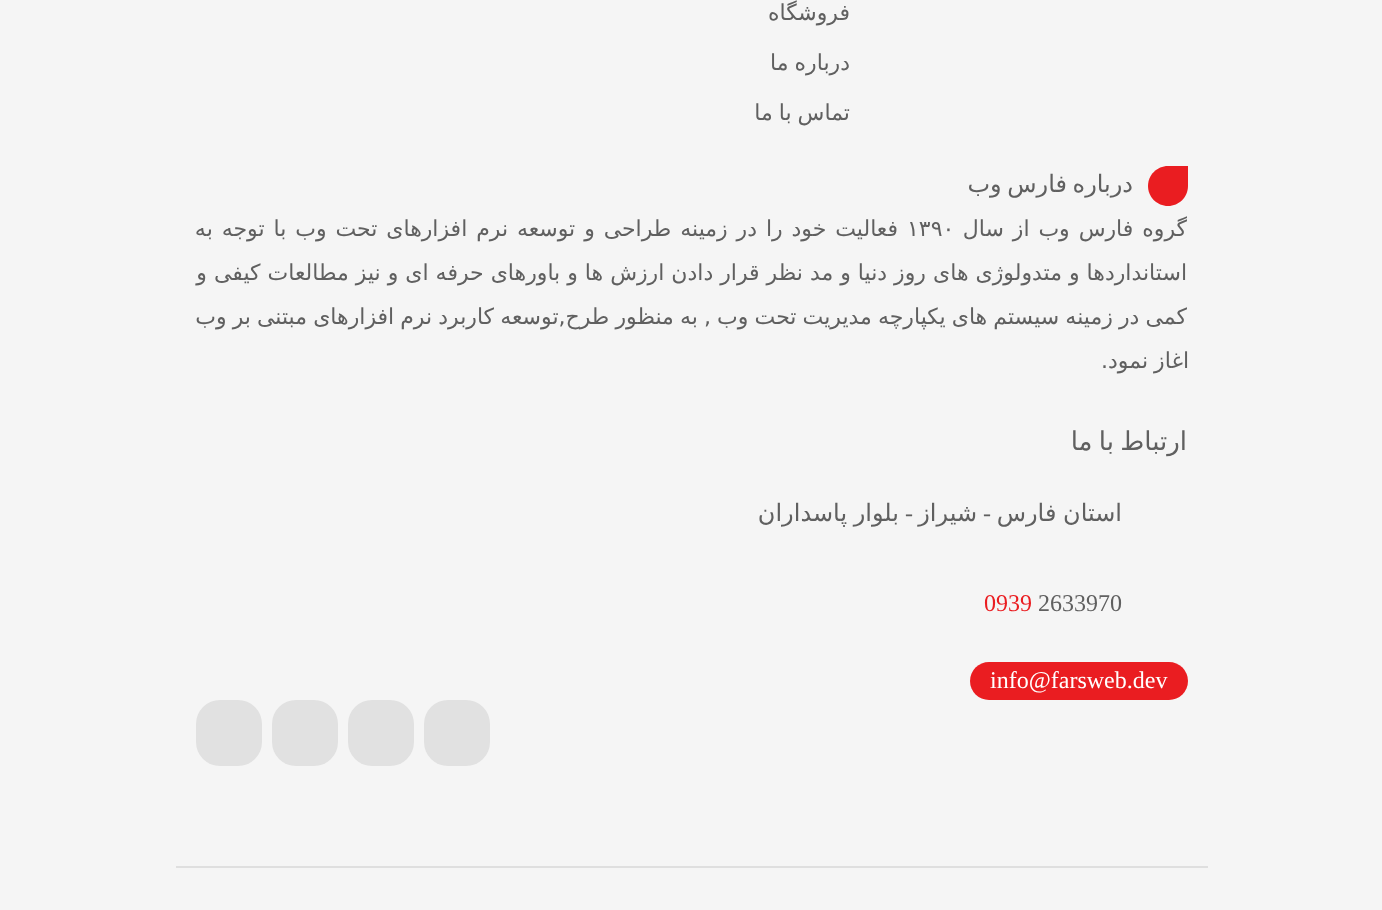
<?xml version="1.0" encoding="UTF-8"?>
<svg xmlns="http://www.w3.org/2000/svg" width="1382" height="910">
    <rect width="100%" height="100%" fill="#F5F5F5"/>
    <text x="850" y="20" font-family="DejaVu Sans" font-size="22" direction="rtl" fill="#606060">فروشگاه</text>
    <text x="850" y="70" word-spacing="-1" font-family="DejaVu Sans" font-size="22" direction="rtl" fill="#606060">درباره ما</text>
    <text x="850" y="120" word-spacing="-1" font-family="DejaVu Sans" font-size="22" direction="rtl" fill="#606060">تماس با ما</text>
    <path d="M 1168 166 H 1188 V 186 C 1188 197 1179 206 1168 206 C 1157 206 1148 197 1148 186 C 1148 175 1157 166 1168 166 Z" fill="#EA1D21"/>
    <text x="1133" y="192" word-spacing="-2" font-family="DejaVu Sans" font-size="24" direction="rtl" fill="#606060">درباره فارس وب</text>
    <text x="1187" y="236" word-spacing="1.9" font-family="DejaVu Sans" font-size="22" direction="rtl" fill="#606060">گروه فارس وب از سال</text>
    <text x="907" y="236" font-family="DejaVu Sans" font-size="22" fill="#606060">۱۳۹۰</text>
    <text x="898" y="236" word-spacing="1.9" font-family="DejaVu Sans" font-size="22" direction="rtl" fill="#606060">فعالیت خود را در زمینه طراحی و توسعه نرم افزارهای تحت وب با توجه به</text>
    <text x="1187" y="280" font-family="DejaVu Sans" font-size="22" direction="rtl" fill="#606060">استانداردها و متدولوژی های روز دنیا و مد نظر قرار دادن ارزش ها و باورهای حرفه ای و نیز مطالعات کیفی و</text>
    <text x="1187" y="324" word-spacing="-0.9" font-family="DejaVu Sans" font-size="22" direction="rtl" fill="#606060">کمی در زمینه سیستم های یکپارچه مدیریت تحت وب , به منظور طرح,توسعه کاربرد نرم افزارهای مبتنی بر وب</text>
    <text x="1189" y="368" word-spacing="-1" font-family="DejaVu Sans" font-size="22" direction="rtl" fill="#606060">اغاز نمود.</text>
    <text x="1187" y="450" word-spacing="-2" font-family="DejaVu Sans" font-size="26" direction="rtl" fill="#606060">ارتباط با ما</text>
    <text x="1122" y="521" word-spacing="-1" font-family="DejaVu Sans" font-size="24" direction="rtl" fill="#606060">استان فارس</text>
    <text x="991" y="521" font-family="Liberation Serif" font-size="24" direction="rtl" fill="#606060">-</text>
    <text x="977" y="521" font-family="DejaVu Sans" font-size="24" direction="rtl" fill="#606060">شیراز</text>
    <text x="913" y="521" font-family="Liberation Serif" font-size="24" direction="rtl" fill="#606060">-</text>
    <text x="899" y="521" word-spacing="-1" font-family="DejaVu Sans" font-size="24" direction="rtl" fill="#606060">بلوار پاسداران</text>
    <text x="1038" y="611" font-family="Liberation Serif" font-size="24" fill="#606060">2633970</text>
    <text x="984" y="611" font-family="Liberation Serif" font-size="24" fill="#EA1D21">0939</text>
    <rect x="970" y="662" width="218" height="38" rx="19" fill="#EA1D21"/>
    <text x="990" y="688" font-family="Liberation Serif" font-size="24" fill="#FFFFFF">info@farsweb.dev</text>
    <rect x="424" y="700" width="66" height="66" rx="24" fill="#E1E1E1"/>
    <rect x="348" y="700" width="66" height="66" rx="24" fill="#E1E1E1"/>
    <rect x="272" y="700" width="66" height="66" rx="24" fill="#E1E1E1"/>
    <rect x="196" y="700" width="66" height="66" rx="24" fill="#E1E1E1"/>
    <rect x="176" y="866" width="1032" height="2" fill="#DFDFDF"/>
</svg>
